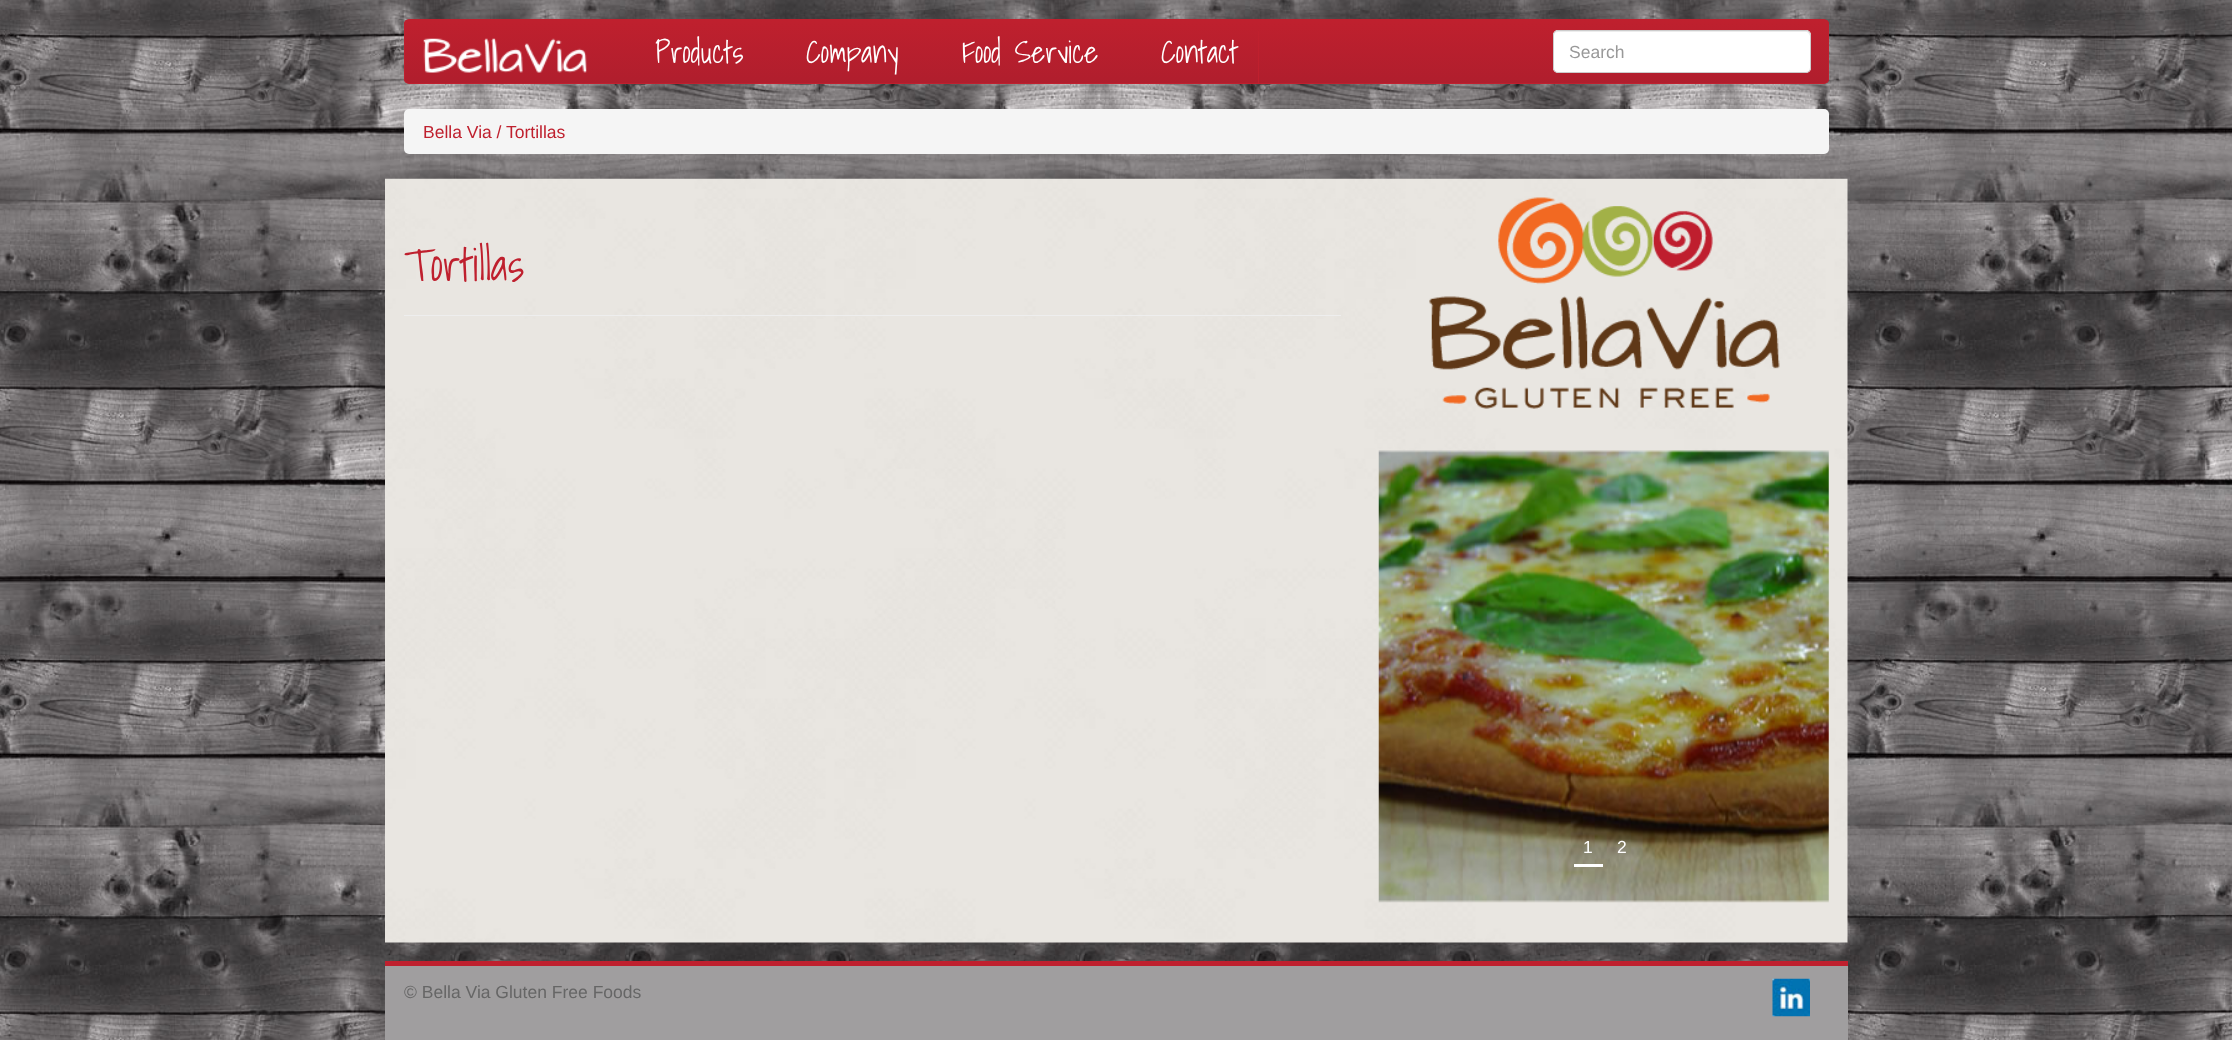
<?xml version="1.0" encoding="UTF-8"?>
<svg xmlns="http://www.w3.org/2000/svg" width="2232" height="1040">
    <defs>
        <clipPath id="clip1"><rect x="404" y="19" width="1425" height="65" rx="5"/></clipPath>
        <linearGradient id="g1" gradientUnits="userSpaceOnUse" x1="1116" y1="20" x2="1116" y2="83"><stop offset="0" stop-color="#BF202E"/><stop offset="1" stop-color="#B01E2D"/></linearGradient>
    </defs>
    <rect width="100%" height="100%" fill="#FFFFFF"/>
    <image x="0" y="0" width="2232" height="1040" href="img_01.png"/>
    <g clip-path="url(#clip1)">
        <rect x="404" y="20" width="1425" height="63" fill="url(#g1)"/>
    </g>
    <rect x="404.5" y="19.5" width="1424" height="64" rx="4.5" fill="none" stroke="#BF202E"/>
    <image x="423" y="38" width="164" height="35" href="img_02.png"/>
    <text x="655" y="63" font-family="Shadows Into Light" font-size="30.5" font-weight="300" fill="#FFFFFF">Products</text>
    <text x="806" y="63" font-family="Shadows Into Light" font-size="30.5" font-weight="300" fill="#FFFFFF">Company</text>
    <text x="962" y="63" font-family="Shadows Into Light" font-size="30.5" font-weight="300" fill="#FFFFFF">Food Service</text>
    <rect x="1258" y="31" width="1" height="52" fill="#BF202E"/>
    <text x="1161" y="63" font-family="Shadows Into Light" font-size="30.5" font-weight="300" fill="#FFFFFF">Contact</text>
    <rect x="1553" y="30" width="258" height="43" rx="5" fill="#FFFFFF"/>
    <path d="M 1558 32 H 1807 L 1809 34 L 1810 36 V 35 C 1810 33 1808 31 1806 31 H 1558 C 1556 31 1554 33 1554 35 V 36 C 1554 34 1555 32 1558 32 Z" fill="#ECECEC"/>
    <rect x="1553.5" y="30.5" width="257" height="42" rx="4.5" fill="none" stroke="#CCCCCC"/>
    <text x="1569" y="58" font-family="Liberation Sans" font-size="17.5" fill="#999999">Search</text>
    <rect x="404" y="109" width="1425" height="45" rx="5" fill="#F5F5F5"/>
    <text x="423" y="138" font-family="Liberation Sans" font-size="17.5" fill="#BF202E">Bella Via /</text>
    <text x="506" y="138" font-family="Liberation Sans" font-size="17.5" fill="#BF202E">Tortillas</text>
    <image x="385" y="178" width="1463" height="765" href="img_03.png"/>
    <rect x="404" y="315" width="937" height="1" fill="#EEEEEE"/>
    <text x="404" y="281" font-family="Shadows Into Light" font-size="45" font-weight="300" fill="#BF202E">Tortillas</text>
    <image x="1429" y="197" width="351" height="212" href="img_04.png"/>
    <image x="1378" y="450" width="451" height="453" href="img_05.png"/>
    <rect x="1574" y="864" width="29" height="3" fill="#FFFFFF"/>
    <text x="1583" y="853" font-family="Liberation Sans" font-size="17.5" fill="#FFFFFF">1</text>
    <text x="1617" y="853" font-family="Liberation Sans" font-size="17.5" fill="#FFFFFF">2</text>
    <rect x="385" y="966" width="1463" height="74" fill="#A09E9F"/>
    <rect x="385" y="961" width="1463" height="5" fill="#BF202E"/>
    <text x="404" y="998" font-family="Liberation Sans" font-size="17.5" fill="#666666">© Bella Via Gluten Free Foods</text>
    <image x="1772" y="978" width="38" height="39" href="img_06.png"/>
</svg>
